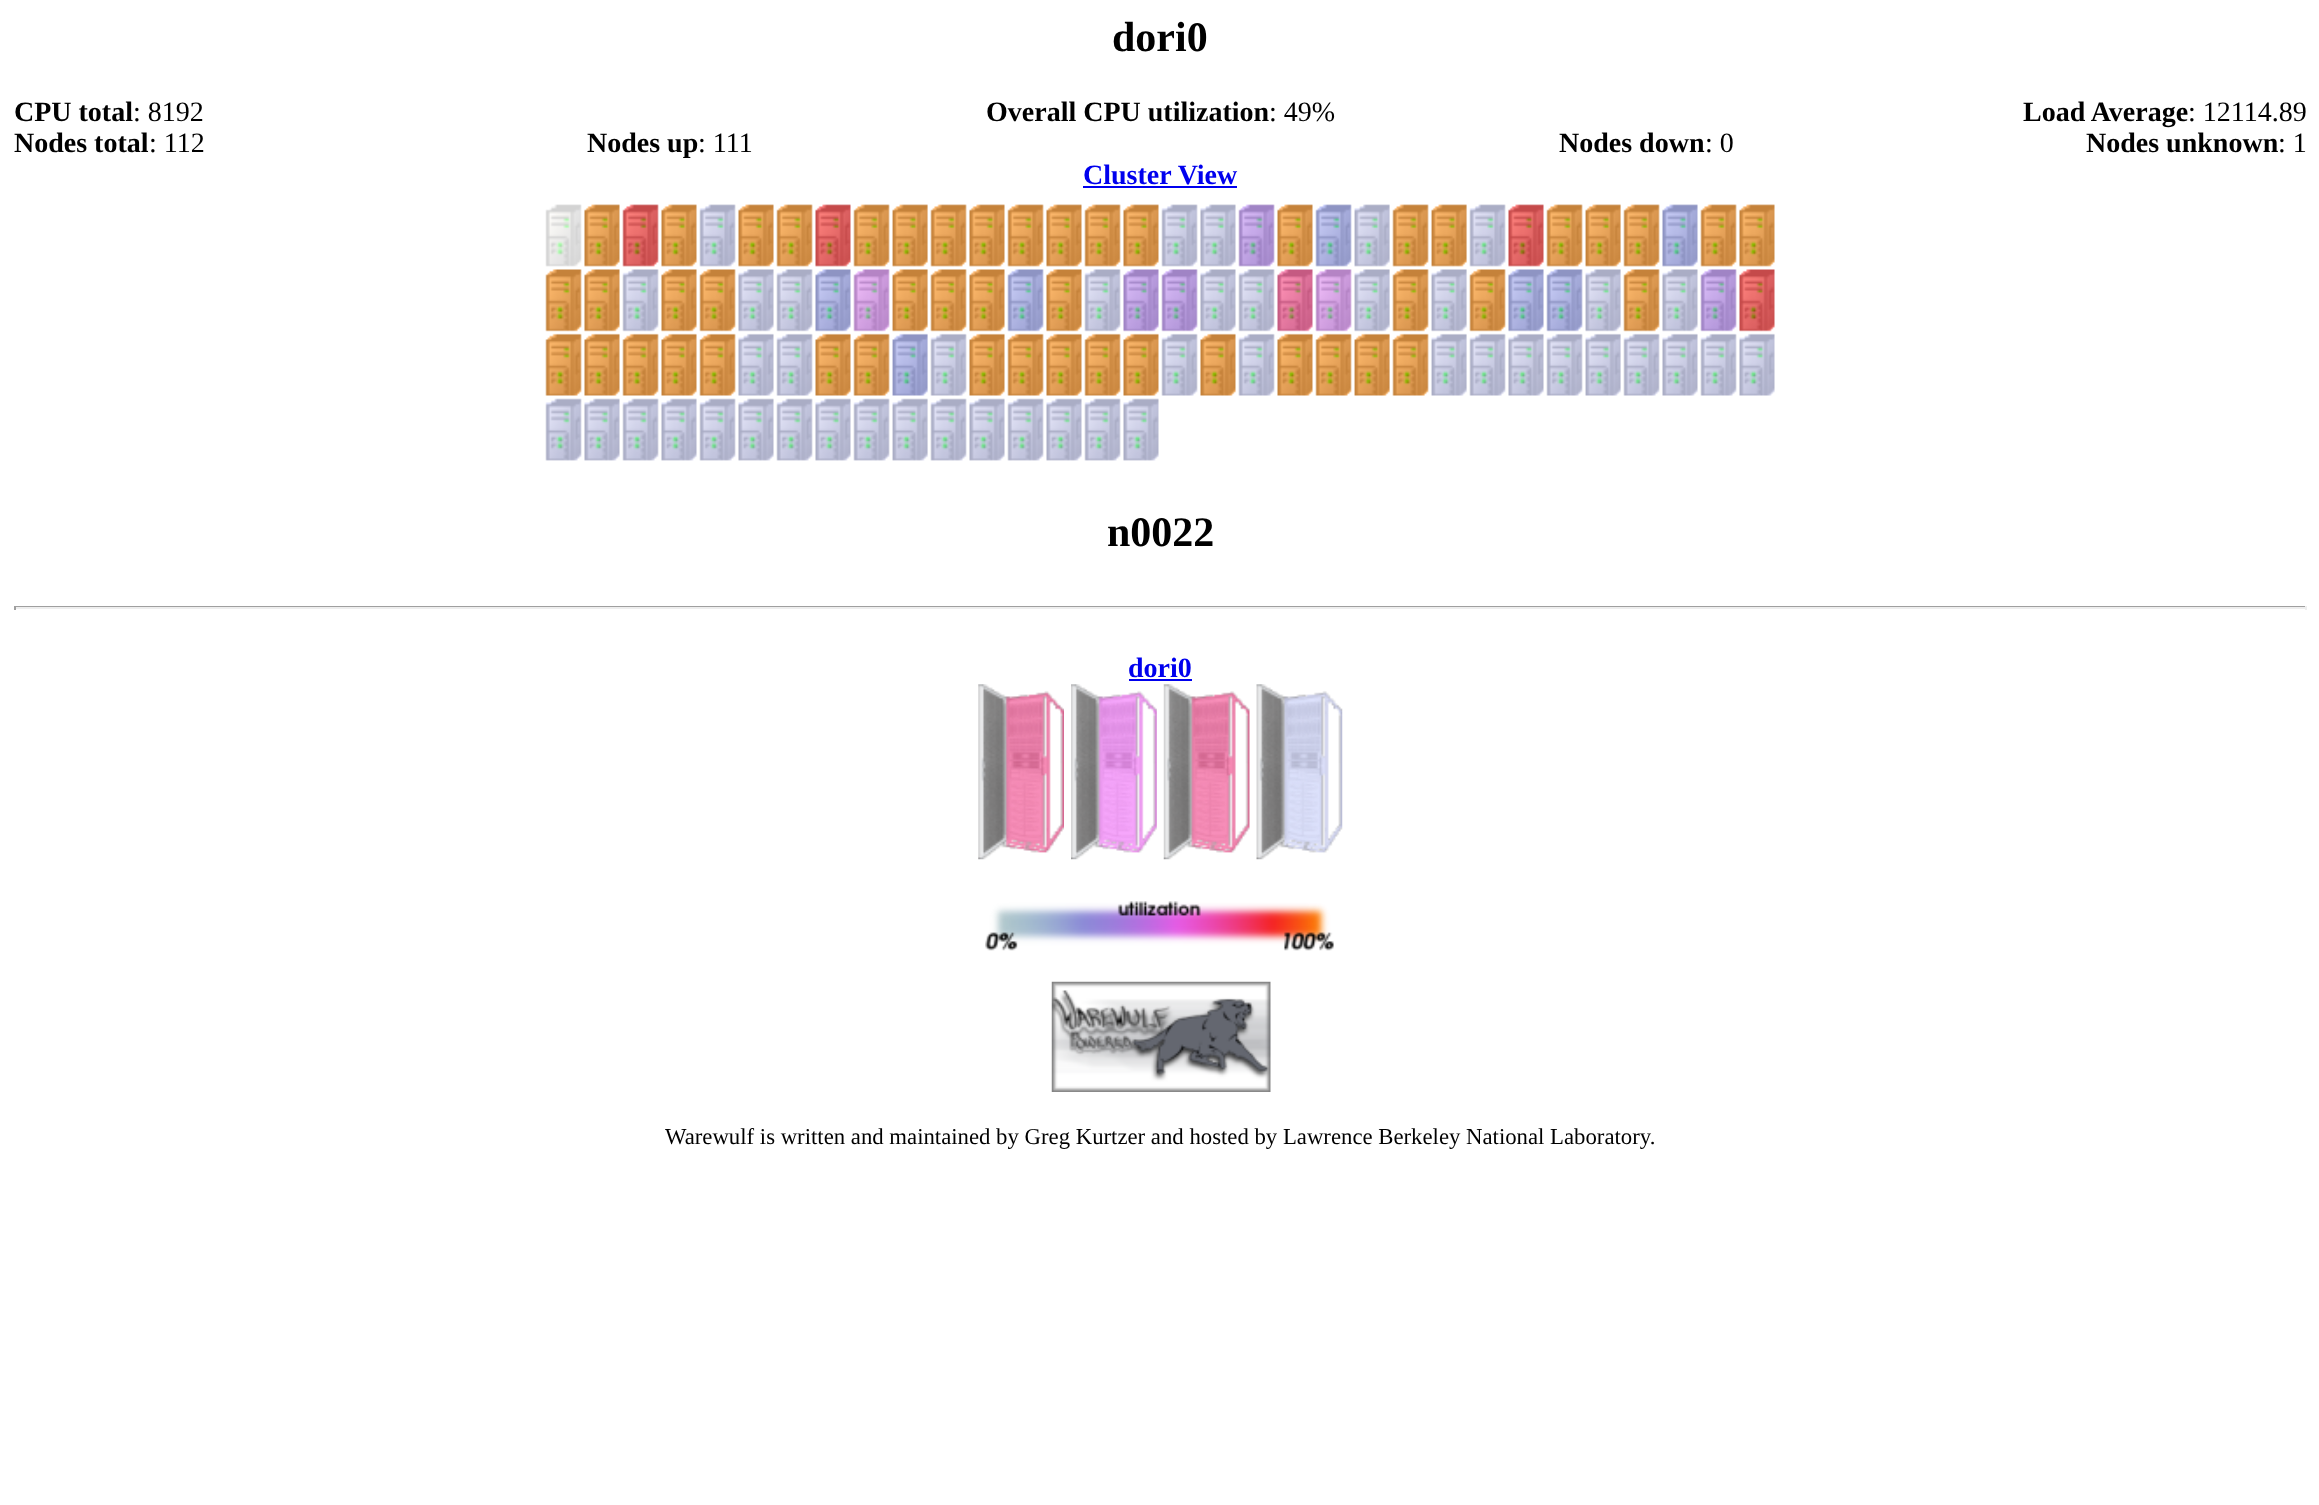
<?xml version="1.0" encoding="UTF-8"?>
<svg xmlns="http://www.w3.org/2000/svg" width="2319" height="1505">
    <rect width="100%" height="100%" fill="#FFFFFF"/>
    <text x="1112" y="51" font-family="Liberation Serif" font-size="42" font-weight="700" fill="#000000">dori0</text>
    <text x="14" y="121" font-family="Liberation Serif" font-size="28" font-weight="700" fill="#000000">CPU total</text>
    <text x="133" y="121" font-family="Liberation Serif" font-size="28" fill="#000000">: 8192</text>
    <text x="986" y="121" font-family="Liberation Serif" font-size="28" font-weight="700" fill="#000000">Overall CPU utilization</text>
    <text x="1269" y="121" font-family="Liberation Serif" font-size="28" fill="#000000">: 49%</text>
    <text x="2023" y="121" font-family="Liberation Serif" font-size="28" font-weight="700" fill="#000000">Load Average</text>
    <text x="2188" y="121" font-family="Liberation Serif" font-size="28" fill="#000000">: 12114.89</text>
    <text x="14" y="152" font-family="Liberation Serif" font-size="28" font-weight="700" fill="#000000">Nodes total</text>
    <text x="149" y="152" font-family="Liberation Serif" font-size="28" fill="#000000">: 112</text>
    <text x="587" y="152" font-family="Liberation Serif" font-size="28" font-weight="700" fill="#000000">Nodes up</text>
    <text x="698" y="152" font-family="Liberation Serif" font-size="28" fill="#000000">: 111</text>
    <text x="1559" y="152" font-family="Liberation Serif" font-size="28" font-weight="700" fill="#000000">Nodes down</text>
    <text x="1705" y="152" font-family="Liberation Serif" font-size="28" fill="#000000">: 0</text>
    <text x="2086" y="152" font-family="Liberation Serif" font-size="28" font-weight="700" fill="#000000">Nodes unknown</text>
    <text x="2278" y="152" font-family="Liberation Serif" font-size="28" fill="#000000">: 1</text>
    <text x="1083" y="184" font-family="Liberation Serif" font-size="28" font-weight="700" fill="#0000EE">Cluster View</text>
    <rect x="1083" y="186" width="154" height="2" fill="#0000EE"/>
    <image x="545" y="204" width="37" height="63" href="img_01.png"/>
    <image x="584" y="204" width="36" height="63" href="img_02.png"/>
    <image x="622" y="204" width="37" height="63" href="img_03.png"/>
    <image x="661" y="204" width="36" height="63" href="img_02.png"/>
    <image x="699" y="204" width="37" height="63" href="img_04.png"/>
    <image x="738" y="204" width="36" height="63" href="img_02.png"/>
    <image x="776" y="204" width="37" height="63" href="img_05.png"/>
    <image x="815" y="204" width="36" height="63" href="img_06.png"/>
    <image x="853" y="204" width="37" height="63" href="img_05.png"/>
    <image x="892" y="204" width="36" height="63" href="img_07.png"/>
    <image x="930" y="204" width="37" height="63" href="img_05.png"/>
    <image x="969" y="204" width="36" height="63" href="img_02.png"/>
    <image x="1007" y="204" width="37" height="63" href="img_08.png"/>
    <image x="1046" y="204" width="36" height="63" href="img_02.png"/>
    <image x="1084" y="204" width="37" height="63" href="img_05.png"/>
    <image x="1123" y="204" width="36" height="63" href="img_02.png"/>
    <image x="1161" y="204" width="37" height="63" href="img_04.png"/>
    <image x="1200" y="204" width="36" height="63" href="img_09.png"/>
    <image x="1238" y="204" width="37" height="63" href="img_10.png"/>
    <image x="1277" y="204" width="36" height="63" href="img_02.png"/>
    <image x="1315" y="204" width="37" height="63" href="img_11.png"/>
    <image x="1354" y="204" width="36" height="63" href="img_12.png"/>
    <image x="1392" y="204" width="37" height="63" href="img_13.png"/>
    <image x="1431" y="204" width="36" height="63" href="img_07.png"/>
    <image x="1469" y="204" width="37" height="63" href="img_04.png"/>
    <image x="1508" y="204" width="36" height="63" href="img_06.png"/>
    <image x="1546" y="204" width="37" height="63" href="img_05.png"/>
    <image x="1585" y="204" width="36" height="63" href="img_07.png"/>
    <image x="1623" y="204" width="37" height="63" href="img_05.png"/>
    <image x="1662" y="204" width="36" height="63" href="img_14.png"/>
    <image x="1700" y="204" width="37" height="63" href="img_05.png"/>
    <image x="1739" y="204" width="36" height="63" href="img_02.png"/>
    <image x="545" y="269" width="37" height="63" href="img_15.png"/>
    <image x="584" y="269" width="36" height="63" href="img_16.png"/>
    <image x="622" y="269" width="37" height="63" href="img_17.png"/>
    <image x="661" y="269" width="36" height="63" href="img_16.png"/>
    <image x="699" y="269" width="37" height="63" href="img_18.png"/>
    <image x="738" y="269" width="36" height="63" href="img_19.png"/>
    <image x="776" y="269" width="37" height="63" href="img_17.png"/>
    <image x="815" y="269" width="36" height="63" href="img_20.png"/>
    <image x="853" y="269" width="37" height="63" href="img_21.png"/>
    <image x="892" y="269" width="36" height="63" href="img_22.png"/>
    <image x="930" y="269" width="37" height="63" href="img_18.png"/>
    <image x="969" y="269" width="36" height="63" href="img_16.png"/>
    <image x="1007" y="269" width="37" height="63" href="img_23.png"/>
    <image x="1046" y="269" width="36" height="63" href="img_16.png"/>
    <image x="1084" y="269" width="37" height="63" href="img_17.png"/>
    <image x="1123" y="269" width="36" height="63" href="img_24.png"/>
    <image x="1161" y="269" width="37" height="63" href="img_25.png"/>
    <image x="1200" y="269" width="36" height="63" href="img_19.png"/>
    <image x="1238" y="269" width="37" height="63" href="img_17.png"/>
    <image x="1277" y="269" width="36" height="63" href="img_26.png"/>
    <image x="1315" y="269" width="37" height="63" href="img_21.png"/>
    <image x="1354" y="269" width="36" height="63" href="img_27.png"/>
    <image x="1392" y="269" width="37" height="63" href="img_28.png"/>
    <image x="1431" y="269" width="36" height="63" href="img_27.png"/>
    <image x="1469" y="269" width="37" height="63" href="img_18.png"/>
    <image x="1508" y="269" width="36" height="63" href="img_20.png"/>
    <image x="1546" y="269" width="37" height="63" href="img_29.png"/>
    <image x="1585" y="269" width="36" height="63" href="img_27.png"/>
    <image x="1623" y="269" width="37" height="63" href="img_18.png"/>
    <image x="1662" y="269" width="36" height="63" href="img_19.png"/>
    <image x="1700" y="269" width="37" height="63" href="img_25.png"/>
    <image x="1739" y="269" width="36" height="63" href="img_30.png"/>
    <image x="545" y="333" width="37" height="63" href="img_31.png"/>
    <image x="584" y="333" width="36" height="63" href="img_32.png"/>
    <image x="622" y="333" width="37" height="63" href="img_33.png"/>
    <image x="661" y="333" width="36" height="63" href="img_32.png"/>
    <image x="699" y="333" width="37" height="63" href="img_33.png"/>
    <image x="738" y="333" width="36" height="63" href="img_34.png"/>
    <image x="776" y="333" width="37" height="63" href="img_35.png"/>
    <image x="815" y="333" width="36" height="63" href="img_32.png"/>
    <image x="853" y="333" width="37" height="63" href="img_33.png"/>
    <image x="892" y="333" width="36" height="63" href="img_36.png"/>
    <image x="930" y="333" width="37" height="63" href="img_35.png"/>
    <image x="969" y="333" width="36" height="63" href="img_32.png"/>
    <image x="1007" y="333" width="37" height="63" href="img_37.png"/>
    <image x="1046" y="333" width="36" height="63" href="img_32.png"/>
    <image x="1084" y="333" width="37" height="63" href="img_33.png"/>
    <image x="1123" y="333" width="36" height="63" href="img_32.png"/>
    <image x="1161" y="333" width="37" height="63" href="img_35.png"/>
    <image x="1200" y="333" width="36" height="63" href="img_32.png"/>
    <image x="1238" y="333" width="37" height="63" href="img_35.png"/>
    <image x="1277" y="333" width="36" height="63" href="img_32.png"/>
    <image x="1315" y="333" width="37" height="63" href="img_33.png"/>
    <image x="1354" y="333" width="36" height="63" href="img_38.png"/>
    <image x="1392" y="333" width="37" height="63" href="img_39.png"/>
    <image x="1431" y="333" width="36" height="63" href="img_40.png"/>
    <image x="1469" y="333" width="37" height="63" href="img_35.png"/>
    <image x="1508" y="333" width="36" height="63" href="img_34.png"/>
    <image x="1546" y="333" width="37" height="63" href="img_35.png"/>
    <image x="1585" y="333" width="36" height="63" href="img_40.png"/>
    <image x="1623" y="333" width="37" height="63" href="img_35.png"/>
    <image x="1662" y="333" width="36" height="63" href="img_34.png"/>
    <image x="1700" y="333" width="37" height="63" href="img_35.png"/>
    <image x="1739" y="333" width="36" height="63" href="img_34.png"/>
    <image x="545" y="398" width="37" height="63" href="img_41.png"/>
    <image x="584" y="398" width="36" height="63" href="img_42.png"/>
    <image x="622" y="398" width="37" height="63" href="img_43.png"/>
    <image x="661" y="398" width="36" height="63" href="img_42.png"/>
    <image x="699" y="398" width="37" height="63" href="img_43.png"/>
    <image x="738" y="398" width="36" height="63" href="img_42.png"/>
    <image x="776" y="398" width="37" height="63" href="img_43.png"/>
    <image x="815" y="398" width="36" height="63" href="img_42.png"/>
    <image x="853" y="398" width="37" height="63" href="img_43.png"/>
    <image x="892" y="398" width="36" height="63" href="img_44.png"/>
    <image x="930" y="398" width="37" height="63" href="img_43.png"/>
    <image x="969" y="398" width="36" height="63" href="img_42.png"/>
    <image x="1007" y="398" width="37" height="63" href="img_45.png"/>
    <image x="1046" y="398" width="36" height="63" href="img_42.png"/>
    <image x="1084" y="398" width="37" height="63" href="img_43.png"/>
    <image x="1123" y="398" width="36" height="63" href="img_42.png"/>
    <text x="1107" y="546" font-family="Liberation Serif" font-size="42" font-weight="700" fill="#000000">n0022</text>
    <rect x="14" y="606" width="2293" height="1" fill="#9F9F9F"/>
    <rect x="2305" y="606" width="2" height="4" fill="#EEEEEE"/>
    <rect x="14" y="607" width="2293" height="2" fill="#EEEEEE"/>
    <rect x="14" y="606" width="2" height="4" fill="#9F9F9F"/>
    <text x="1128" y="677" font-family="Liberation Serif" font-size="28" font-weight="700" fill="#0000EE">dori0</text>
    <rect x="1129" y="679" width="63" height="2" fill="#0000EE"/>
    <image x="978" y="684" width="86" height="176" href="img_46.png"/>
    <image x="1071" y="684" width="86" height="176" href="img_47.png"/>
    <image x="1163" y="684" width="87" height="176" href="img_48.png"/>
    <image x="1256" y="684" width="87" height="176" href="img_49.png"/>
    <image x="985" y="901" width="349" height="50" href="img_50.png"/>
    <image x="1051" y="981" width="220" height="111" href="img_51.png"/>
    <text x="665" y="1144" font-family="Liberation Serif" font-size="22.75" fill="#000000">Warewulf is written and maintained by Greg Kurtzer and hosted by Lawrence Berkeley National Laboratory.</text>
</svg>
